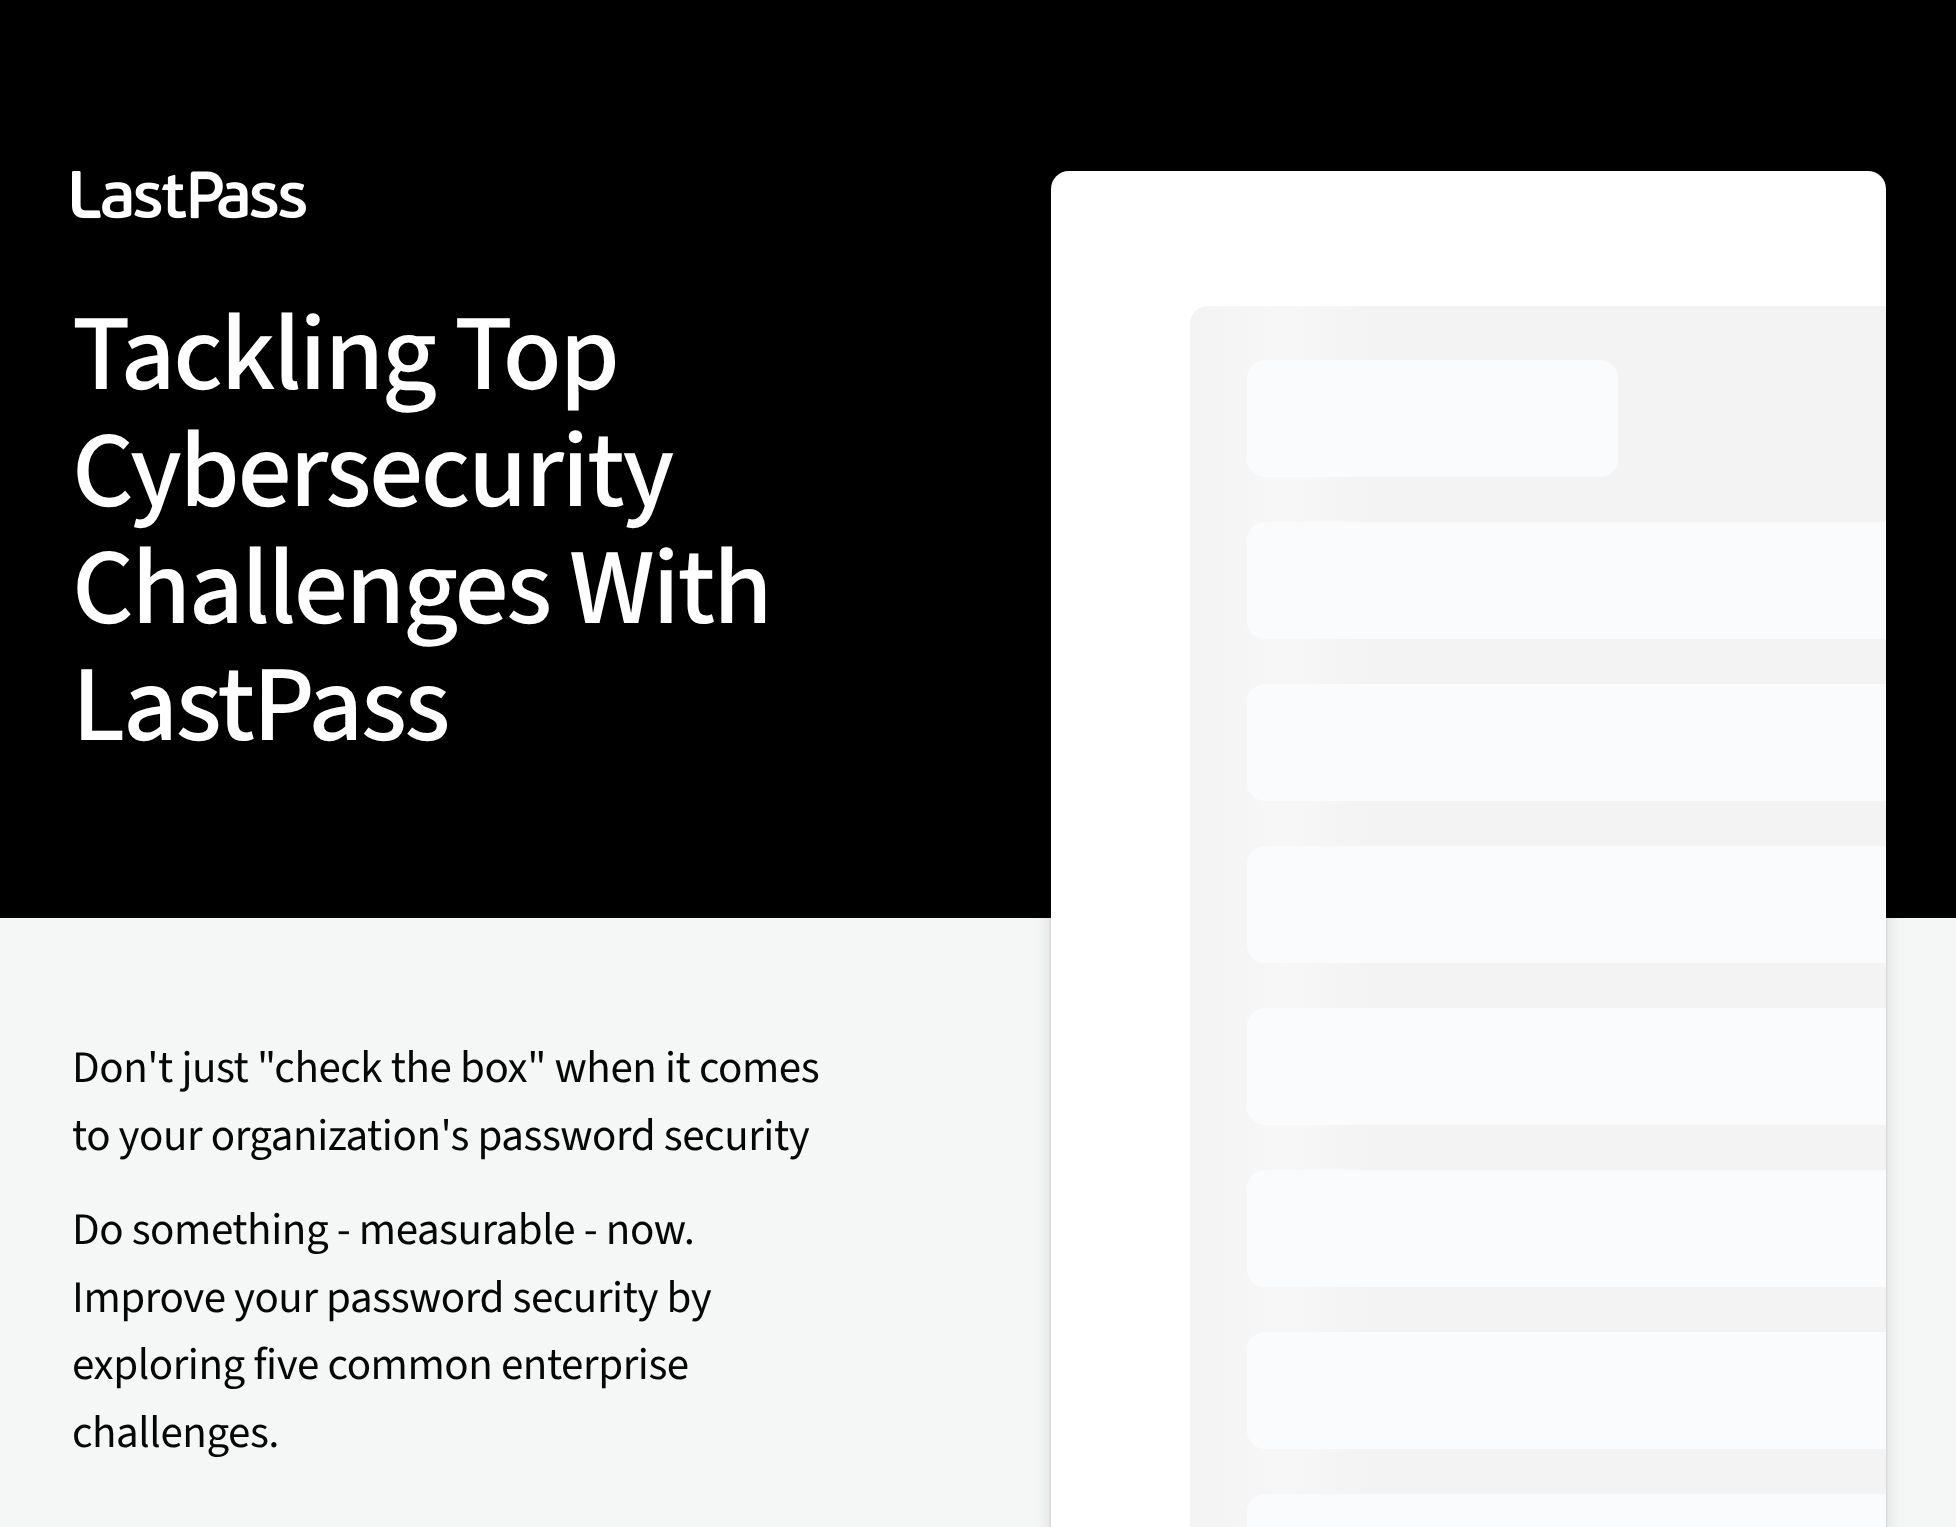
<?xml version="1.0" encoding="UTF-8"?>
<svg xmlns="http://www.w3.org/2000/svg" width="1956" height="1527">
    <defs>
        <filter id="blur1" x="-50%" y="-200%" width="200%" height="500%"><feGaussianBlur stdDeviation="9"/></filter>
        <filter id="blur2" x="-50%" y="-200%" width="200%" height="500%"><feGaussianBlur stdDeviation="1"/></filter>
        <linearGradient id="g1" gradientUnits="userSpaceOnUse" x1="1190" y1="1256" x2="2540" y2="1256"><stop offset="0" stop-color="#F3F3F3"/><stop offset="0.07" stop-color="#F7F7F7"/><stop offset="0.13" stop-color="#F3F3F3"/></linearGradient>
    </defs>
    <rect width="100%" height="100%" fill="#F5F6F6"/>
    <rect x="0" y="0" width="1956" height="918" fill="#000000"/>
    <image x="72" y="171" width="234" height="48" href="img_01.png"/>
    <text font-family="'Source Sans 3'" font-size="108" font-weight="500" letter-spacing="-2.3" fill="#FFFFFF">
        <tspan x="72" y="389">Tackling Top</tspan>
        <tspan x="72" y="506">Cybersecurity</tspan>
        <tspan x="72" y="623">Challenges With</tspan>
        <tspan x="72" y="740">LastPass</tspan>
    </text>
    <rect x="1051" y="180" width="835" height="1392" rx="18" fill="#050606" fill-opacity="0.13" filter="url(#blur1)"/>
    <rect x="1051" y="171" width="835" height="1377" rx="18" fill="#050606" fill-opacity="0.17" filter="url(#blur2)"/>
    <rect x="1051" y="171" width="835" height="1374" rx="18" fill="#FFFFFF"/>
    <path d="M 1208 306 H 1886 V 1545 H 1208 C 1198 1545 1190 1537 1190 1527 V 324 C 1190 314 1198 306 1208 306 Z" fill="url(#g1)"/>
    <rect x="1247" y="360" width="371" height="117" rx="18" fill="#F9FBFD"/>
    <path d="M 1265 522 H 1886 V 639 H 1265 C 1255 639 1247 631 1247 621 V 540 C 1247 530 1255 522 1265 522 Z" fill="#F9FBFD"/>
    <path d="M 1265 684 H 1886 V 801 H 1265 C 1255 801 1247 793 1247 783 V 702 C 1247 692 1255 684 1265 684 Z" fill="#F9FBFD"/>
    <path d="M 1265 846 H 1886 V 963 H 1265 C 1255 963 1247 955 1247 945 V 864 C 1247 854 1255 846 1265 846 Z" fill="#F9FBFD"/>
    <path d="M 1265 1008 H 1886 V 1125 H 1265 C 1255 1125 1247 1117 1247 1107 V 1026 C 1247 1016 1255 1008 1265 1008 Z" fill="#F9FBFD"/>
    <path d="M 1265 1170 H 1886 V 1287 H 1265 C 1255 1287 1247 1279 1247 1269 V 1188 C 1247 1178 1255 1170 1265 1170 Z" fill="#F9FBFD"/>
    <path d="M 1265 1332 H 1886 V 1449 H 1265 C 1255 1449 1247 1441 1247 1431 V 1350 C 1247 1340 1255 1332 1265 1332 Z" fill="#F9FBFD"/>
    <path d="M 1265 1494 H 1886 V 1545 H 1265 C 1255 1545 1247 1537 1247 1527 V 1512 C 1247 1502 1255 1494 1265 1494 Z" fill="#F9FBFD"/>
    <text font-family="'Source Sans 3'" font-size="45" letter-spacing="-0.45" fill="#050606">
        <tspan x="72" y="1082">Don't just "check the box" when it comes</tspan>
        <tspan x="72" y="1150">to your organization's password security</tspan>
    </text>
    <text font-family="'Source Sans 3'" font-size="45" letter-spacing="-0.45" fill="#050606">
        <tspan x="72" y="1244">Do something - measurable - now.</tspan>
        <tspan x="72" y="1312">Improve your password security by</tspan>
        <tspan x="72" y="1379">exploring five common enterprise</tspan>
        <tspan x="72" y="1447">challenges.</tspan>
    </text>
</svg>
